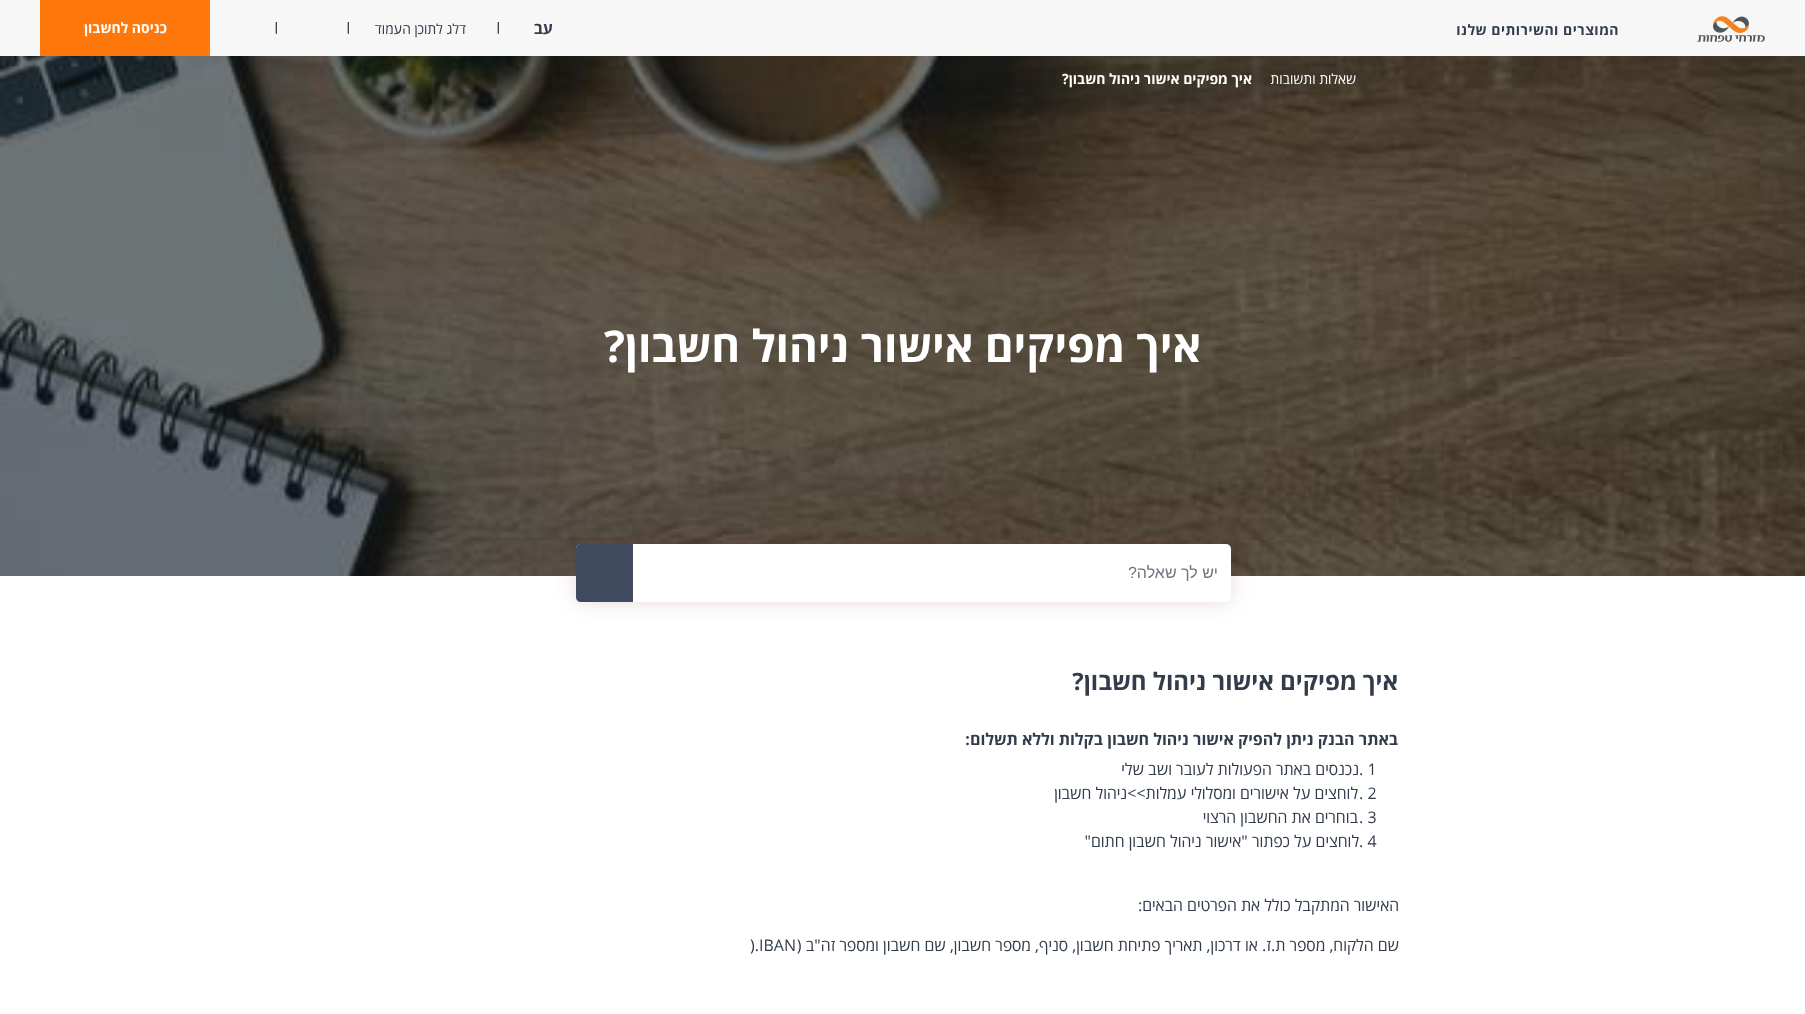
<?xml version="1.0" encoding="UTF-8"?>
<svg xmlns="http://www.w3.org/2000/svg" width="1805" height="1014">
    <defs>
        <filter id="blur1" x="-50%" y="-200%" width="200%" height="500%"><feGaussianBlur stdDeviation="10"/></filter>
    </defs>
    <rect width="100%" height="100%" fill="#FFFFFF"/>
    <rect x="0" y="0" width="1805" height="56" fill="#F7F7F7"/>
    <image x="1697" y="16" width="68" height="26" href="img_01.png"/>
    <text x="1619" y="35" font-family="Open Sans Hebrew" font-size="14" font-weight="700" letter-spacing="0.5" direction="rtl" fill="#323C4B">המוצרים והשירותים שלנו</text>
    <text x="553" y="34" font-family="Open Sans Hebrew" font-size="16" font-weight="700" direction="rtl" fill="#323C4B">עב</text>
    <text x="495" y="31" font-family="Open Sans Hebrew" font-size="12" font-weight="700" fill="#323C4B">|</text>
    <text x="466" y="34" font-family="Open Sans Hebrew" font-size="14" direction="rtl" fill="#323C4B">דלג לתוכן העמוד</text>
    <text x="345" y="31" font-family="Open Sans Hebrew" font-size="12" font-weight="700" fill="#323C4B">|</text>
    <text x="273" y="31" font-family="Open Sans Hebrew" font-size="12" font-weight="700" fill="#323C4B">|</text>
    <rect x="40" y="0" width="170" height="56" fill="#FF780B"/>
    <text x="167" y="33" font-family="Open Sans Hebrew" font-size="14" font-weight="700" direction="rtl" fill="#FFFFFF">כניסה לחשבון</text>
    <image x="0" y="56" width="1805" height="520" href="img_02.png"/>
    <text x="1356" y="84" font-family="Open Sans Hebrew" font-size="14" direction="rtl" fill="#FFFFFF">שאלות ותשובות</text>
    <text x="1252" y="84" font-family="Open Sans Hebrew" font-size="14" font-weight="700" direction="rtl" fill="#FFFFFF">איך מפיקים אישור ניהול חשבון?</text>
    <text x="1201" y="362" font-family="Open Sans Hebrew" font-size="44" font-weight="700" direction="rtl" fill="#FFFFFF">איך מפיקים אישור ניהול חשבון?</text>
    <rect x="576" y="544" width="655" height="58" rx="5" fill="#5F1E00" fill-opacity="0.15" filter="url(#blur1)"/>
    <rect x="576" y="544" width="655" height="58" rx="5" fill="#FFFFFF"/>
    <text x="1218" y="578" font-family="Liberation Sans" font-size="16" direction="rtl" fill="#6C757D">יש לך שאלה?</text>
    <path d="M 581 544 H 633 V 602 H 581 C 578 602 576 600 576 597 V 549 C 576 546 578 544 581 544 Z" fill="#3F4A5E"/>
    <text x="1398" y="690" font-family="Open Sans Hebrew" font-size="24" font-weight="700" direction="rtl" fill="#323C4B">איך מפיקים אישור ניהול חשבון?</text>
    <text x="1398" y="745" font-family="Open Sans Hebrew" font-size="16" font-weight="700" direction="rtl" fill="#323C4B">באתר הבנק ניתן להפיק אישור ניהול חשבון בקלות וללא תשלום:</text>
    <text x="1359" y="775" font-family="Open Sans Hebrew" font-size="16" fill="#323C4B">. 1</text>
    <text x="1359" y="775" font-family="Open Sans Hebrew" font-size="16" direction="rtl" fill="#323C4B">נכנסים באתר הפעולות לעובר ושב שלי</text>
    <text x="1359" y="799" font-family="Open Sans Hebrew" font-size="16" fill="#323C4B">. 2</text>
    <text x="1358" y="799" font-family="Open Sans Hebrew" font-size="16" direction="rtl" fill="#323C4B">לוחצים על אישורים ומסלולי עמלות&gt;&gt;ניהול חשבון</text>
    <text x="1359" y="823" font-family="Open Sans Hebrew" font-size="16" fill="#323C4B">. 3</text>
    <text x="1358" y="823" font-family="Open Sans Hebrew" font-size="16" direction="rtl" fill="#323C4B">בוחרים את החשבון הרצוי</text>
    <text x="1359" y="847" font-family="Open Sans Hebrew" font-size="16" fill="#323C4B">. 4</text>
    <text x="1359" y="847" font-family="Open Sans Hebrew" font-size="16" direction="rtl" fill="#323C4B">לוחצים על כפתור "אישור ניהול חשבון חתום"</text>
    <text x="1399" y="911" font-family="Open Sans Hebrew" font-size="16" direction="rtl" fill="#323C4B">האישור המתקבל כולל את הפרטים הבאים:</text>
    <text x="1399" y="951" font-family="Open Sans Hebrew" font-size="16" direction="rtl" fill="#323C4B">שם הלקוח, מספר ת.ז. או דרכון, תאריך פתיחת חשבון, סניף, מספר חשבון, שם חשבון ומספר זה"ב (</text>
    <text x="750" y="951" font-family="Open Sans Hebrew" font-size="16" fill="#323C4B">).IBAN</text>
</svg>
